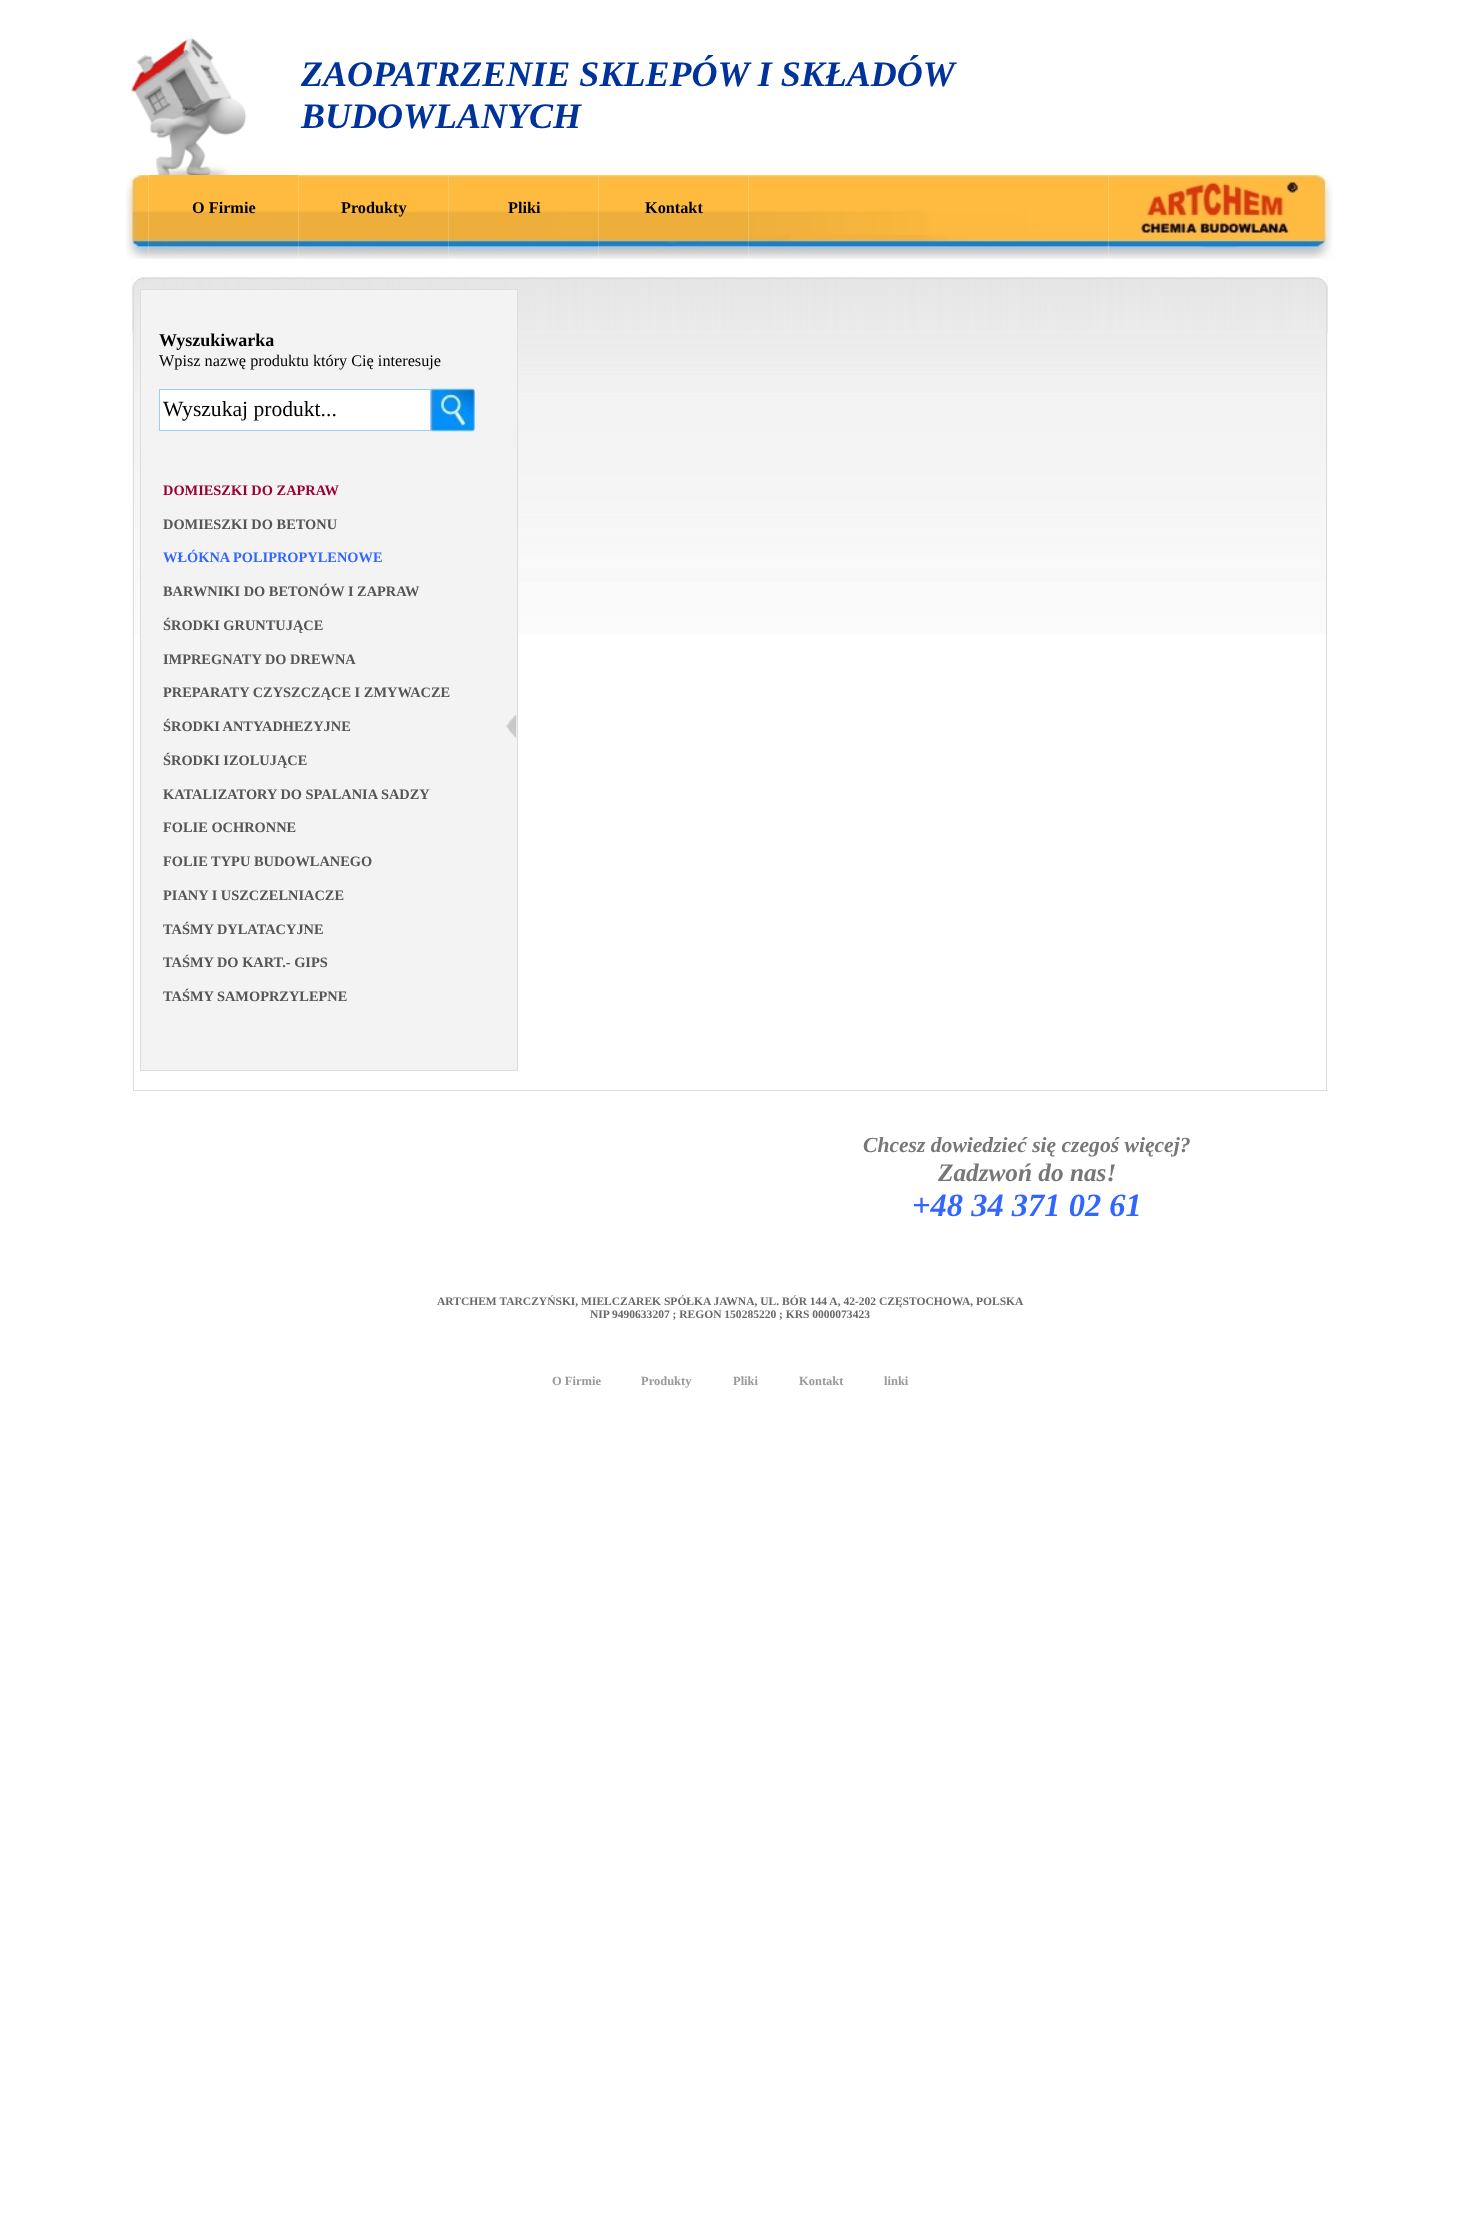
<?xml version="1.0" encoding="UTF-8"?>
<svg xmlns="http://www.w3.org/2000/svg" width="1460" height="2219">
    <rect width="100%" height="100%" fill="#FFFFFF"/>
    <image x="131" y="38" width="116" height="137" href="img_01.png"/>
    <text font-family="Liberation Serif" font-size="36" font-weight="700" font-style="italic" fill="#003399">
        <tspan x="301" y="86">ZAOPATRZENIE SKLEPÓW I SKŁADÓW</tspan>
        <tspan x="301" y="128">BUDOWLANYCH</tspan>
    </text>
    <image x="126" y="175" width="23" height="84" href="img_02.png"/>
    <image x="148" y="175" width="151" height="84" href="img_03.png"/>
    <text x="192" y="213" font-family="Liberation Serif" font-size="16.25" font-weight="700" fill="#000000">O Firmie</text>
    <image x="298" y="175" width="151" height="84" href="img_04.png"/>
    <text x="341" y="213" font-family="Liberation Serif" font-size="16.25" font-weight="700" fill="#000000">Produkty</text>
    <image x="448" y="175" width="151" height="84" href="img_05.png"/>
    <text x="508" y="213" font-family="Liberation Serif" font-size="16.25" font-weight="700" fill="#000000">Pliki</text>
    <image x="598" y="175" width="151" height="84" href="img_06.png"/>
    <text x="645" y="213" font-family="Liberation Serif" font-size="16.25" font-weight="700" fill="#000000">Kontakt</text>
    <image x="748" y="175" width="361" height="84" href="img_07.png"/>
    <image x="1108" y="175" width="225" height="84" href="img_08.png"/>
    <image x="132" y="276" width="1196" height="358" href="img_09.png"/>
    <image x="132" y="276" width="1196" height="57" href="img_10.png"/>
    <rect x="1326" y="289" width="1" height="802" fill="#DDDDDD"/>
    <rect x="133" y="1090" width="1195" height="1" fill="#DDDDDD"/>
    <rect x="133" y="289" width="1" height="802" fill="#DDDDDD"/>
    <rect x="140.5" y="289.5" width="377" height="781" fill="#F3F3F3" stroke="#DDDDDD"/>
    <text x="159" y="346" font-family="Liberation Serif" font-size="18" font-weight="700" fill="#000000">Wyszukiwarka</text>
    <text x="159" y="366" font-family="Liberation Serif" font-size="16.25" fill="#000000">Wpisz nazwę produktu który Cię interesuje</text>
    <rect x="159.5" y="389.5" width="271" height="41" fill="#FFFFFF" stroke="#99CCFF"/>
    <text x="163" y="416" font-family="Liberation Serif" font-size="21.6" fill="#000000">Wyszukaj produkt...</text>
    <image x="431" y="388" width="44" height="44" href="img_11.png"/>
    <text x="163" y="495" font-family="Liberation Serif" font-size="14.4" font-weight="700" fill="#990033">DOMIESZKI DO ZAPRAW</text>
    <text x="163" y="529" font-family="Liberation Serif" font-size="14.4" font-weight="700" fill="#555555">DOMIESZKI DO BETONU</text>
    <text x="163" y="562" font-family="Liberation Serif" font-size="14.4" font-weight="700" fill="#3366FF">WŁÓKNA POLIPROPYLENOWE</text>
    <text x="163" y="596" font-family="Liberation Serif" font-size="14.4" font-weight="700" fill="#555555">BARWNIKI DO BETONÓW I ZAPRAW</text>
    <text x="163" y="630" font-family="Liberation Serif" font-size="14.4" font-weight="700" fill="#555555">ŚRODKI GRUNTUJĄCE</text>
    <text x="163" y="664" font-family="Liberation Serif" font-size="14.4" font-weight="700" fill="#555555">IMPREGNATY DO DREWNA</text>
    <text x="163" y="697" font-family="Liberation Serif" font-size="14.4" font-weight="700" fill="#555555">PREPARATY CZYSZCZĄCE I ZMYWACZE</text>
    <image x="506" y="715" width="11" height="23" href="img_12.png"/>
    <text x="163" y="731" font-family="Liberation Serif" font-size="14.4" font-weight="700" fill="#555555">ŚRODKI ANTYADHEZYJNE</text>
    <text x="163" y="765" font-family="Liberation Serif" font-size="14.4" font-weight="700" fill="#555555">ŚRODKI IZOLUJĄCE</text>
    <text x="163" y="799" font-family="Liberation Serif" font-size="14.4" font-weight="700" fill="#555555">KATALIZATORY DO SPALANIA SADZY</text>
    <text x="163" y="832" font-family="Liberation Serif" font-size="14.4" font-weight="700" fill="#555555">FOLIE OCHRONNE</text>
    <text x="163" y="866" font-family="Liberation Serif" font-size="14.4" font-weight="700" fill="#555555">FOLIE TYPU BUDOWLANEGO</text>
    <text x="163" y="900" font-family="Liberation Serif" font-size="14.4" font-weight="700" fill="#555555">PIANY I USZCZELNIACZE</text>
    <text x="163" y="934" font-family="Liberation Serif" font-size="14.4" font-weight="700" fill="#555555">TAŚMY DYLATACYJNE</text>
    <text x="163" y="967" font-family="Liberation Serif" font-size="14.4" font-weight="700" fill="#555555">TAŚMY DO KART.- GIPS</text>
    <text x="163" y="1001" font-family="Liberation Serif" font-size="14.4" font-weight="700" fill="#555555">TAŚMY SAMOPRZYLEPNE</text>
    <text x="863" y="1152" font-family="Liberation Serif" font-size="21.6" font-weight="700" font-style="italic" fill="#777777">Chcesz dowiedzieć się czegoś więcej?</text>
    <text x="938" y="1181" font-family="Liberation Serif" font-size="25.25" font-weight="700" font-style="italic" fill="#777777">Zadzwoń do nas!</text>
    <text x="912" y="1216" font-family="Liberation Serif" font-size="32.5" font-weight="700" font-style="italic" fill="#3366FF">+48 34 371 02 61</text>
    <text x="437" y="1305" font-family="Liberation Serif" font-size="11.52" font-weight="700" fill="#696969">ARTCHEM TARCZYŃSKI, MIELCZAREK SPÓŁKA JAWNA, UL. BÓR 144 A, 42-202 CZĘSTOCHOWA, POLSKA</text>
    <text x="590" y="1318" font-family="Liberation Serif" font-size="11.52" font-weight="700" fill="#696969">NIP 9490633207 ; REGON 150285220 ; KRS 0000073423</text>
    <text x="552" y="1385" font-family="Liberation Serif" font-size="12.5" font-weight="700" fill="#999999">O Firmie</text>
    <text x="641" y="1385" font-family="Liberation Serif" font-size="12.5" font-weight="700" fill="#999999">Produkty</text>
    <text x="733" y="1385" font-family="Liberation Serif" font-size="12.5" font-weight="700" fill="#999999">Pliki</text>
    <text x="799" y="1385" font-family="Liberation Serif" font-size="12.5" font-weight="700" fill="#999999">Kontakt</text>
    <text x="884" y="1385" font-family="Liberation Serif" font-size="12.5" font-weight="700" fill="#999999">linki</text>
</svg>
